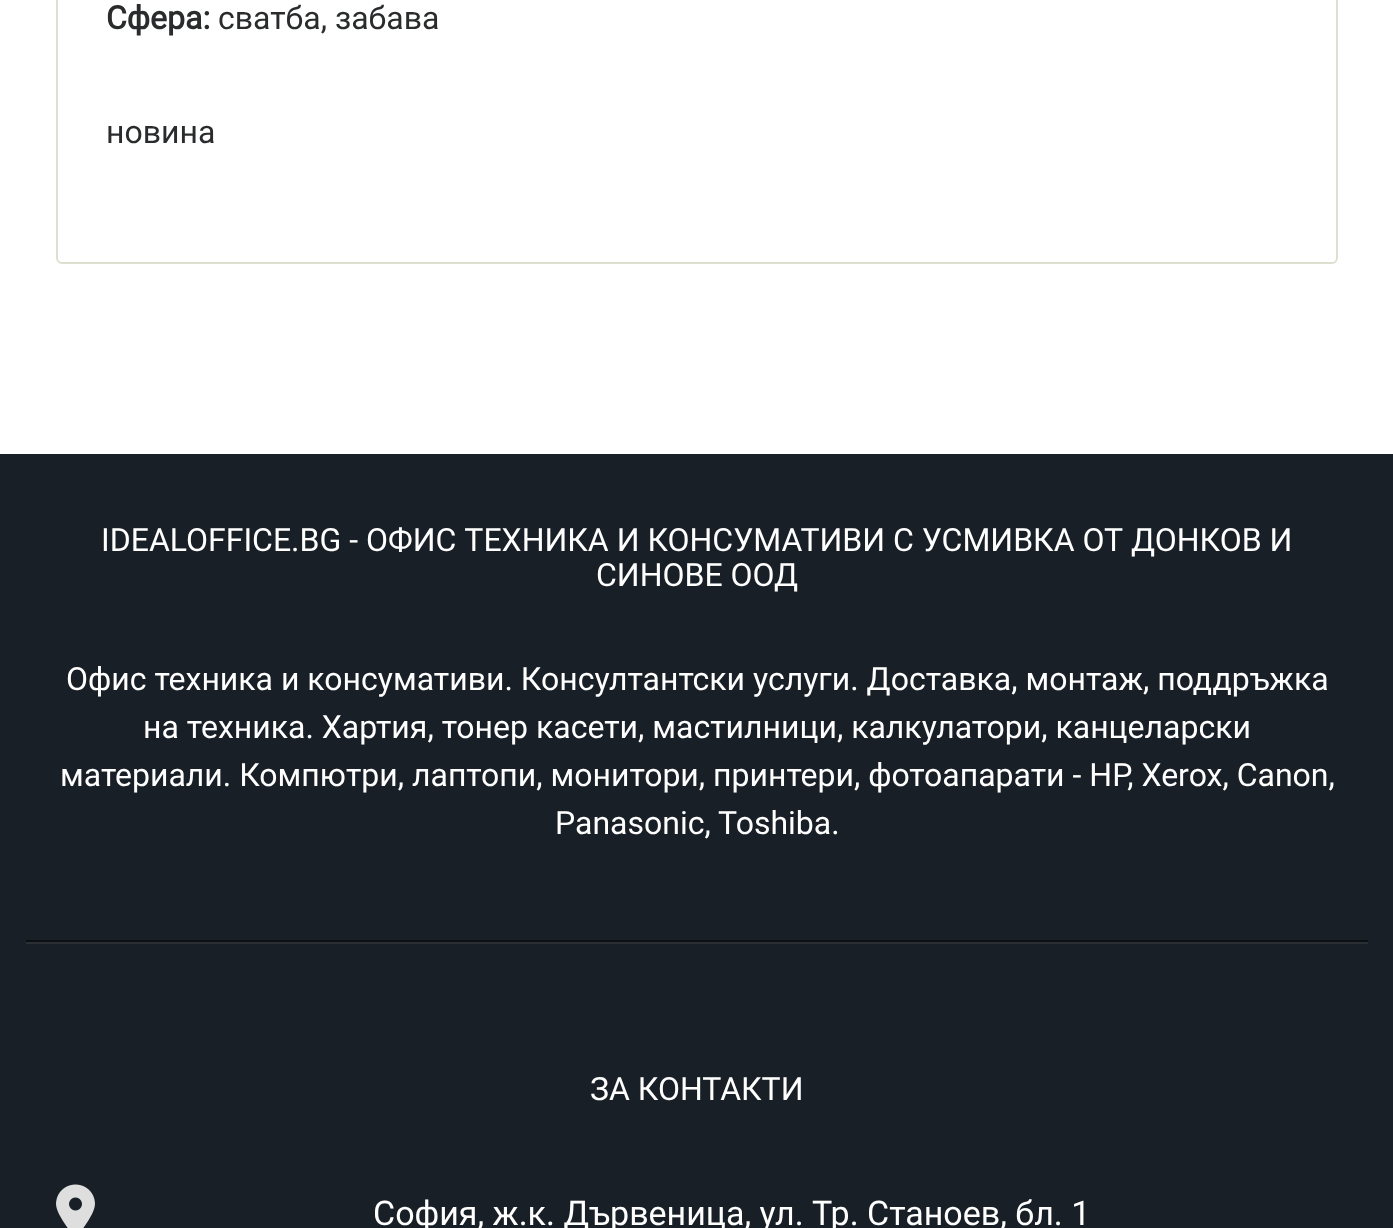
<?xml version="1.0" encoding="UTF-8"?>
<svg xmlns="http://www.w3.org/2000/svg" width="1393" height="1228">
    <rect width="100%" height="100%" fill="#FFFFFF"/>
    <rect x="57" y="-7" width="1280" height="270" rx="5" fill="none" stroke="#DFDFD0" stroke-width="2"/>
    <text x="106" y="29" font-family="Roboto" font-size="32" font-weight="700" fill="#292B2C">Сфера:</text>
    <text x="218" y="29" font-family="Roboto" font-size="32" fill="#292B2C">сватба, забава</text>
    <text x="106" y="143" font-family="Roboto" font-size="32" fill="#292B2C">новина</text>
    <rect x="0" y="454" width="1393" height="774" fill="#191F26"/>
    <rect x="26" y="942" width="1342" height="2" fill="#292F35"/>
    <rect x="26" y="940" width="1342" height="2" fill="#0D1013"/>
    <text x="101" y="551" font-family="Roboto" font-size="32" fill="#FFFFFF">IDEALOFFICE.BG - ОФИС ТЕХНИКА И КОНСУМАТИВИ С УСМИВКА ОТ ДОНКОВ И</text>
    <text x="596" y="586" font-family="Roboto" font-size="32" fill="#FFFFFF">СИНОВЕ ООД</text>
    <text x="66" y="690" font-family="Roboto" font-size="32" fill="#FFFFFF">Офис техника и консумативи. Консултантски услуги. Доставка, монтаж, поддръжка</text>
    <text x="143" y="738" font-family="Roboto" font-size="32" fill="#FFFFFF">на техника. Хартия, тонер касети, мастилници, калкулатори, канцеларски</text>
    <text x="60" y="786" font-family="Roboto" font-size="32" fill="#FFFFFF">материали. Компютри, лаптопи, монитори, принтери, фотоапарати - HP, Xerox, Canon,</text>
    <text x="555" y="834" font-family="Roboto" font-size="32" fill="#FFFFFF">Panasonic, Toshiba.</text>
    <text x="590" y="1100" font-family="Roboto" font-size="32" fill="#FFFFFF">ЗА КОНТАКТИ</text>
    <image x="56" y="1184" width="39" height="44" href="img_01.png"/>
    <text x="373" y="1225" font-family="Roboto" font-size="34" fill="#FFFFFF">София, ж.к. Дървеница, ул. Тр. Станоев, бл. 1</text>
</svg>
